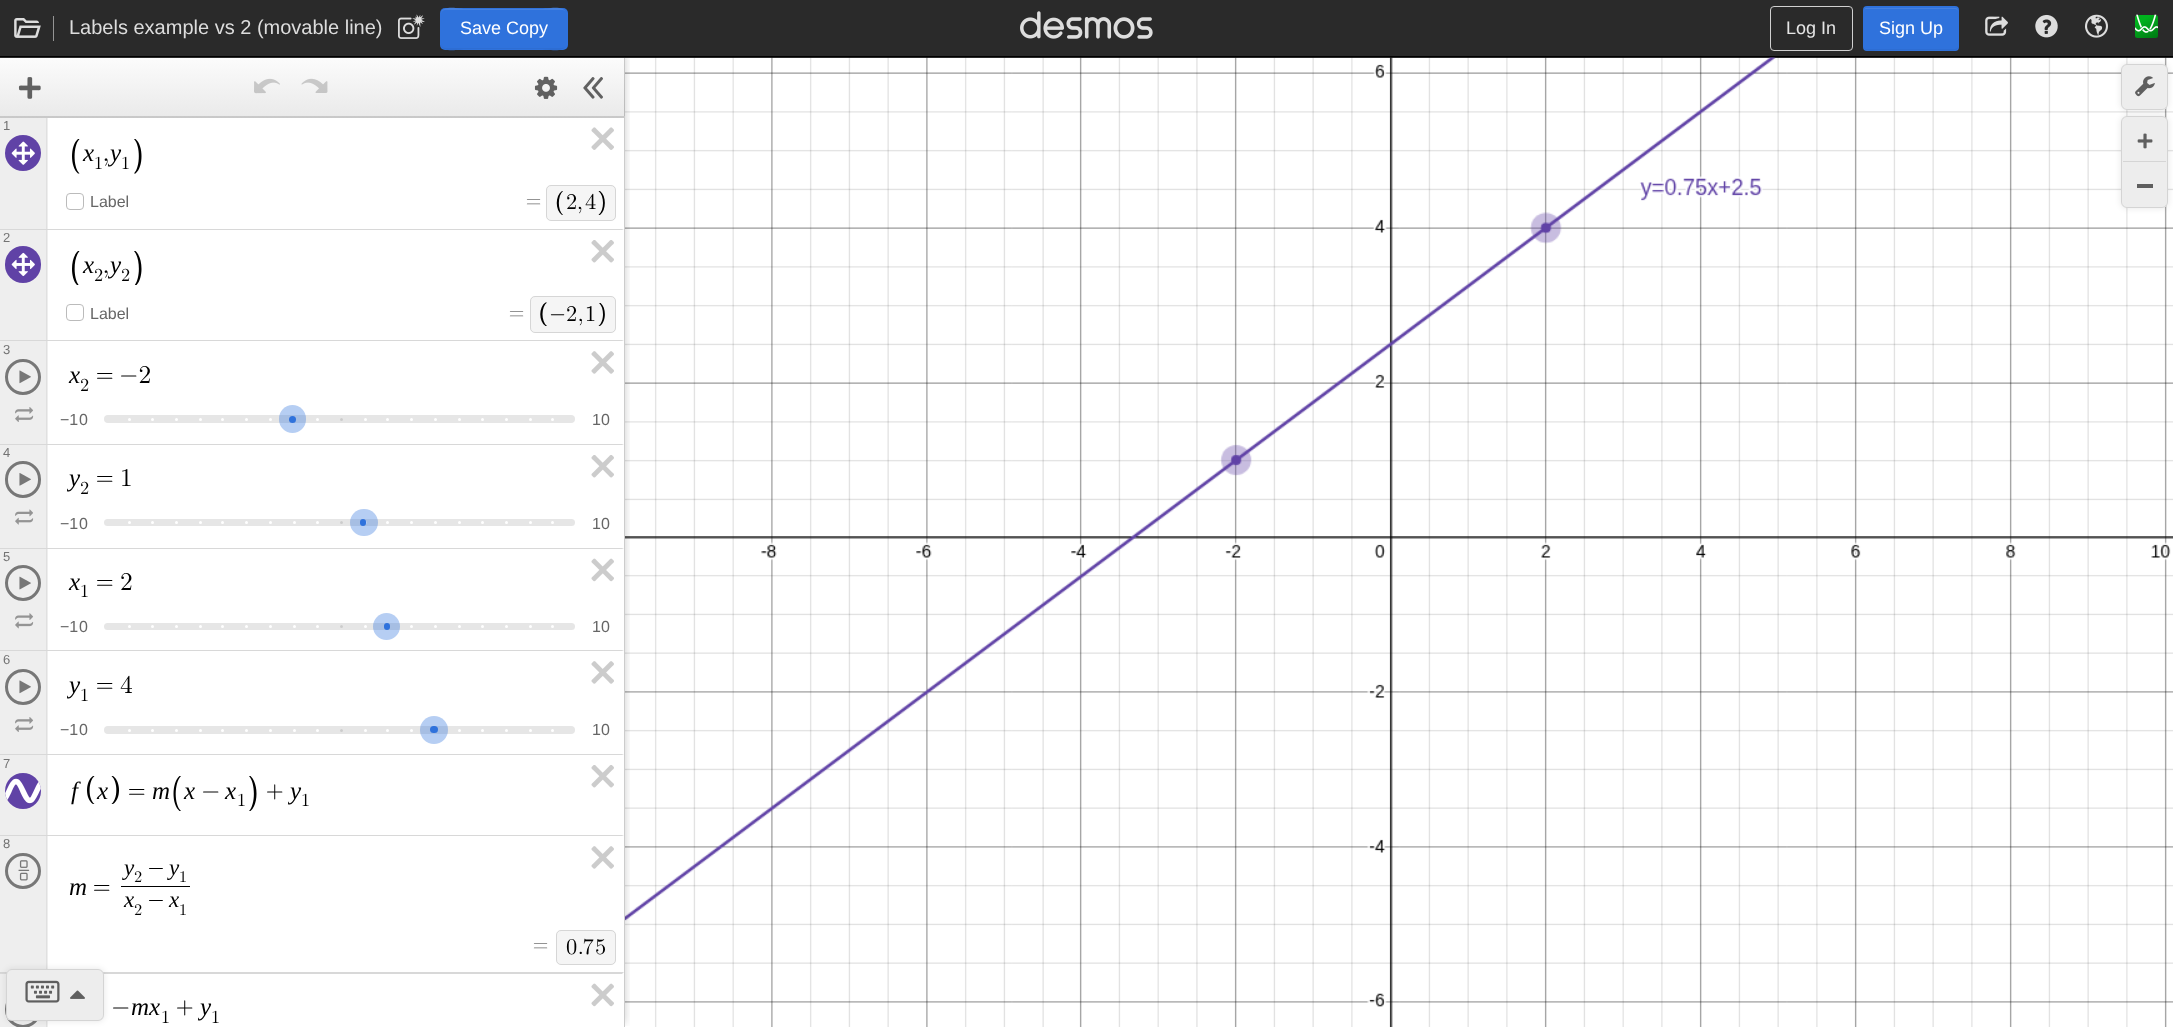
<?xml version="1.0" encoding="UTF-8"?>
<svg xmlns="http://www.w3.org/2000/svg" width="2173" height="1027">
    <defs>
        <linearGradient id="g1" gradientUnits="userSpaceOnUse" x1="2154" y1="40" x2="2139" y2="13"><stop offset="0.06" stop-color="#007C14"/><stop offset="0.75" stop-color="#00B21D"/></linearGradient>
        <filter id="blur1" x="-50%" y="-200%" width="200%" height="500%"><feGaussianBlur stdDeviation="3"/></filter>
        <clipPath id="clip1"><rect x="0" y="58" width="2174" height="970"/></clipPath>
        <clipPath id="clip2"><rect x="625" y="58" width="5" height="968"/></clipPath>
        <filter id="blur2" x="-50%" y="-200%" width="200%" height="500%"><feGaussianBlur stdDeviation="4"/></filter>
        <linearGradient id="g2" gradientUnits="userSpaceOnUse" x1="312" y1="57" x2="312" y2="116"><stop offset="0" stop-color="#FCFCFC"/><stop offset="1" stop-color="#EAEAEA"/></linearGradient>
        <linearGradient id="g3" gradientUnits="userSpaceOnUse" x1="312" y1="116" x2="312" y2="175"><stop offset="0" stop-color="#FCFCFC"/><stop offset="1" stop-color="#EAEAEA"/></linearGradient>
        <clipPath id="clip3"><rect x="69" y="251" width="14" height="34"/></clipPath>
        <clipPath id="clip4"><rect x="131" y="251" width="14" height="34"/></clipPath>
        <clipPath id="clip5"><rect x="596" y="303" width="13" height="23"/></clipPath>
    </defs>
    <rect width="100%" height="100%" fill="#FFFFFF"/>
    <rect x="0" y="0" width="2173" height="58" fill="#2A2A2A"/>
    <rect x="0" y="56" width="2173" height="1" fill="#000000"/>
    <image x="14" y="18" width="27" height="20" href="img_01.png"/>
    <rect x="53" y="16" width="1" height="25" fill="#949494"/>
    <text x="69" y="34" font-family="Liberation Sans" font-size="20" fill="#DDDDDD">Labels example vs 2 (movable line)</text>
    <image x="398" y="14" width="27" height="25" href="img_02.png"/>
    <rect x="440" y="8" width="128" height="42" rx="5" fill="#2F72DC"/>
    <path d="M 441 44 C 441 54 462 49 464 49 H 542 C 545 49 566 54 566 44 C 566 46 565 48 562 48 H 445 C 443 48 441 46 441 44 Z" fill="#2D6DD3"/>
    <path d="M 445 10 H 562 C 565 10 566 12 566 14 C 566 4 545 9 542 9 H 464 C 462 9 441 4 441 14 C 441 12 443 10 445 10 Z" fill="#4480E0"/>
    <text x="460" y="34" font-family="Liberation Sans" font-size="18" fill="#FFFFFF">Save Copy</text>
    <image x="1020" y="11" width="133" height="28" href="img_03.png"/>
    <rect x="1770.5" y="6.5" width="82" height="44" rx="3.5" fill="none" stroke="#D0D0D0"/>
    <text x="1786" y="34" font-family="Liberation Sans" font-size="18" fill="#E5E5E5">Log In</text>
    <rect x="1863" y="6" width="96" height="45" rx="4" fill="#2F72DC"/>
    <path d="M 1864 46 C 1864 54 1876 50 1881 50 H 1941 C 1946 50 1958 54 1958 46 C 1958 48 1956 49 1955 49 H 1866 C 1865 49 1864 48 1864 46 Z" fill="#2D6DD3"/>
    <path d="M 1866 9 H 1955 C 1956 9 1958 10 1958 11 C 1958 10 1957 8 1956 8 H 1866 C 1865 8 1864 10 1864 11 C 1864 10 1865 9 1866 9 Z" fill="#4480E0"/>
    <text x="1879" y="34" font-family="Liberation Sans" font-size="18" fill="#FFFFFF">Sign Up</text>
    <image x="1985" y="16" width="23" height="20" href="img_04.png"/>
    <image x="2035" y="14" width="23" height="24" href="img_05.png"/>
    <image x="2085" y="14" width="23" height="24" href="img_06.png"/>
    <rect x="2135" y="15" width="23" height="23" rx="2.5" fill="url(#g1)"/>
    <image x="2135" y="14" width="23" height="19" href="img_07.png"/>
    <image x="625" y="57" width="1548" height="970" href="img_29.png"/>
    <rect x="2121" y="116" width="47" height="92" rx="6" fill="#000000" fill-opacity="0.1" filter="url(#blur1)"/>
    <rect x="2121" y="116" width="47" height="92" rx="6" fill="#EDEDED"/>
    <rect x="2121.5" y="116.5" width="46" height="91" rx="5.5" fill="none" stroke="#000000" stroke-opacity="0.1"/>
    <rect x="2121" y="64" width="47" height="46" rx="6" fill="#000000" fill-opacity="0.1" filter="url(#blur1)"/>
    <rect x="2121" y="64" width="47" height="46" rx="6" fill="#EDEDED"/>
    <rect x="2121.5" y="64.5" width="46" height="45" rx="5.5" fill="none" stroke="#000000" stroke-opacity="0.1"/>
    <image x="2135" y="76" width="20" height="21" href="img_08.png"/>
    <rect x="2123" y="161" width="43" height="1" fill="#D5D5D5"/>
    <image x="2137" y="133" width="16" height="16" href="img_09.png"/>
    <rect x="2137" y="184" width="16" height="4" fill="#5F5F5F"/>
    <g clip-path="url(#clip1)">
        <g clip-path="url(#clip2)">
            <rect x="0" y="53" width="625" height="970" fill="#000000" fill-opacity="0.2" filter="url(#blur2)"/>
        </g>
    </g>
    <rect x="0" y="58" width="625" height="58" fill="url(#g2)"/>
    <rect x="0" y="116" width="625" height="2" fill="url(#g3)"/>
    <path d="M 625 58 V 118 L 624 116 V 58 Z" fill="#000000" fill-opacity="0.2"/>
    <path d="M 625 118 H 0 V 116 H 624 Z" fill="#000000" fill-opacity="0.2"/>
    <image x="18" y="77" width="23" height="22" href="img_10.png"/>
    <image x="254" y="78" width="26" height="16" href="img_11.png"/>
    <image x="301" y="78" width="27" height="15" href="img_12.png"/>
    <image x="534" y="76" width="24" height="23" href="img_13.png"/>
    <image x="583" y="77" width="20" height="22" href="img_14.png"/>
    <rect x="624" y="118" width="1" height="909" fill="#CCCCCC"/>
    <rect x="0" y="118" width="48" height="111" fill="#EEEEEE"/>
    <rect x="46" y="118" width="1" height="111" fill="#E0E0E0"/>
    <text x="3" y="130" font-family="Liberation Sans" font-size="13" fill="#737373">1</text>
    <circle cx="23" cy="153" r="18" fill="#6042A6"/>
    <image x="11" y="141" width="24" height="24" href="img_15.png"/>
    <image x="591" y="127" width="23" height="23" href="img_16.png"/>
    <path d="M 79.5 139 C 73 145.5 73 167 79.5 173.5 H 78 C 70 167 70 145.5 78 139" fill="#000000"/>
    <text x="83" y="161" font-family="Liberation Serif" font-size="25" font-style="italic" fill="#000000">x</text>
    <text x="94" y="169" font-family="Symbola" font-size="18" fill="#000000">1</text>
    <text x="103" y="161" font-family="Symbola" font-size="25" fill="#000000">,</text>
    <text x="110" y="161" font-family="Liberation Serif" font-size="25" font-style="italic" fill="#000000">y</text>
    <text x="121" y="169" font-family="Symbola" font-size="18" fill="#000000">1</text>
    <path d="M 134 139 C 140.5 145.5 140.5 167 134 173.5 H 135.5 C 143.5 167 143.5 145.5 135.5 139" fill="#000000"/>
    <rect x="66.5" y="193.5" width="17" height="16" rx="3.5" fill="none" stroke="#BBBBBB"/>
    <text x="90" y="207" font-family="Liberation Sans" font-size="16" fill="#666666">Label</text>
    <text x="525" y="208" font-family="Symbola" font-size="22" fill="#737373">=</text>
    <rect x="546" y="185" width="70" height="36" rx="5" fill="#F5F5F5"/>
    <rect x="546.5" y="185.5" width="69" height="35" rx="4.5" fill="none" stroke="#CECECE" stroke-opacity="0.8"/>
    <path d="M 563 191 C 557.5 195.5 557.5 210.5 563 215 H 562 C 555 210.5 555 195.5 562 191 M 598.5 191 C 604.5 195.5 604.5 210.5 598.5 215 H 600 C 606.5 210.5 606.5 195.5 600 191" fill="#000000"/>
    <text x="566" y="209" font-family="Symbola" font-size="22" fill="#000000">2,</text>
    <text x="585" y="209" font-family="Symbola" font-size="22" fill="#000000">4</text>
    <path d="M 0 229 H 624 L 622 230 H 0 Z" fill="#D8D8D8"/>
    <rect x="0" y="230" width="48" height="110" fill="#EEEEEE"/>
    <rect x="46" y="230" width="1" height="110" fill="#E0E0E0"/>
    <text x="3" y="242" font-family="Liberation Sans" font-size="13" fill="#737373">2</text>
    <rect x="5" y="246" width="36" height="37" rx="18" fill="#6042A6"/>
    <image x="11" y="252" width="24" height="25" href="img_17.png"/>
    <image x="591" y="240" width="23" height="23" href="img_18.png"/>
    <g clip-path="url(#clip3)">
        <path d="M 79.5 251 C 73 258 73 279.5 79.5 286 H 78 C 70 279.5 70 258 78 251" fill="#000000"/>
    </g>
    <text x="83" y="273" font-family="Liberation Serif" font-size="25" font-style="italic" fill="#000000">x</text>
    <text x="94" y="281" font-family="Symbola" font-size="18" fill="#000000">2</text>
    <text x="103" y="273" font-family="Symbola" font-size="25" fill="#000000">,</text>
    <text x="110" y="273" font-family="Liberation Serif" font-size="25" font-style="italic" fill="#000000">y</text>
    <text x="121" y="281" font-family="Symbola" font-size="18" fill="#000000">2</text>
    <g clip-path="url(#clip4)">
        <path d="M 134 251 C 140.5 258 140.5 279.5 134 286 H 135.5 C 143.5 279.5 143.5 258 135.5 251" fill="#000000"/>
    </g>
    <rect x="66.5" y="304.5" width="17" height="16" rx="3.5" fill="none" stroke="#BBBBBB"/>
    <text x="90" y="319" font-family="Liberation Sans" font-size="16" fill="#666666">Label</text>
    <text x="508" y="320" font-family="Symbola" font-size="22" fill="#737373">=</text>
    <rect x="530" y="296" width="86" height="37" rx="5" fill="#F5F5F5"/>
    <rect x="530.5" y="296.5" width="85" height="36" rx="4.5" fill="none" stroke="#CECECE" stroke-opacity="0.8"/>
    <path d="M 547 302.5 C 541 307 541 321.5 547 326 H 545.5 C 538.5 321.5 538.5 307 545.5 302.5" fill="#000000"/>
    <text x="549" y="321" font-family="Symbola" font-size="22" fill="#000000">−2</text>
    <text x="585" y="321" font-family="Symbola" font-size="22" fill="#000000">1</text>
    <text x="578" y="321" font-family="Symbola" font-size="22" fill="#000000">,</text>
    <g clip-path="url(#clip5)">
        <path d="M 598.5 302.5 C 604.5 307 604.5 321.5 598.5 326 H 600 C 606.5 321.5 606.5 307 600 302.5" fill="#000000"/>
    </g>
    <path d="M 0 340 H 624 L 622 341 H 0 Z" fill="#D8D8D8"/>
    <rect x="0" y="341" width="48" height="103" fill="#EEEEEE"/>
    <rect x="46" y="341" width="1" height="103" fill="#E0E0E0"/>
    <text x="3" y="354" font-family="Liberation Sans" font-size="13" fill="#737373">3</text>
    <circle cx="23" cy="377" r="16.5" fill="none" stroke="#777777" stroke-width="3"/>
    <image x="19" y="370" width="12" height="14" href="img_19.png"/>
    <image x="15" y="407" width="19" height="15" href="img_20.png"/>
    <image x="591" y="351" width="23" height="23" href="img_21.png"/>
    <text x="69" y="383" font-family="Liberation Serif" font-size="25" font-style="italic" fill="#000000">x</text>
    <text x="95" y="383" font-family="Symbola" font-size="25" fill="#000000">=</text>
    <text x="119" y="383" font-family="Symbola" font-size="25" fill="#000000">−2</text>
    <text x="80" y="391" font-family="Symbola" font-size="18" fill="#000000">2</text>
    <text x="60" y="425" font-family="Liberation Sans" font-size="16" fill="#666666">−1</text>
    <text x="79" y="425" font-family="Liberation Sans" font-size="16" fill="#666666">0</text>
    <rect x="104" y="415" width="471" height="8" rx="4" fill="#E6E6E6"/>
    <rect x="279" y="405" width="27" height="28" rx="13.5" fill="#2F72DC" fill-opacity="0.35"/>
    <circle cx="292.5" cy="419.5" r="3.5" fill="#2F72DC"/>
    <circle cx="129.5" cy="419.5" r="1.5" fill="#FFFFFF"/>
    <circle cx="152.5" cy="419.5" r="1.5" fill="#FFFFFF"/>
    <circle cx="176.5" cy="419.5" r="1.5" fill="#FFFFFF"/>
    <circle cx="200.5" cy="419.5" r="1.5" fill="#FFFFFF"/>
    <circle cx="222.5" cy="419.5" r="1.5" fill="#FFFFFF"/>
    <circle cx="246.5" cy="419.5" r="1.5" fill="#FFFFFF"/>
    <circle cx="270.5" cy="419.5" r="1.5" fill="#FFFFFF"/>
    <circle cx="317.5" cy="419.5" r="1.5" fill="#FFFFFF"/>
    <circle cx="341.5" cy="419.5" r="1.5" fill="#FFFFFF"/>
    <circle cx="365.5" cy="419.5" r="1.5" fill="#FFFFFF"/>
    <circle cx="387.5" cy="419.5" r="1.5" fill="#FFFFFF"/>
    <circle cx="411.5" cy="419.5" r="1.5" fill="#FFFFFF"/>
    <circle cx="435.5" cy="419.5" r="1.5" fill="#FFFFFF"/>
    <circle cx="459.5" cy="419.5" r="1.5" fill="#FFFFFF"/>
    <circle cx="482.5" cy="419.5" r="1.5" fill="#FFFFFF"/>
    <circle cx="506.5" cy="419.5" r="1.5" fill="#FFFFFF"/>
    <circle cx="530.5" cy="419.5" r="1.5" fill="#FFFFFF"/>
    <circle cx="552.5" cy="419.5" r="1.5" fill="#FFFFFF"/>
    <circle cx="341.5" cy="419.5" r="1.5" fill="#000000" fill-opacity="0.2"/>
    <text x="592" y="425" font-family="Liberation Sans" font-size="16" fill="#666666">10</text>
    <path d="M 0 444 H 624 L 622 445 H 0 Z" fill="#D8D8D8"/>
    <rect x="0" y="445" width="48" height="103" fill="#EEEEEE"/>
    <rect x="46" y="445" width="1" height="103" fill="#E0E0E0"/>
    <text x="3" y="457" font-family="Liberation Sans" font-size="13" fill="#737373">4</text>
    <rect x="6.5" y="462.5" width="33" height="34" rx="16.5" fill="none" stroke="#777777" stroke-width="3"/>
    <image x="19" y="473" width="12" height="13" href="img_22.png"/>
    <image x="15" y="509" width="19" height="16" href="img_23.png"/>
    <text x="69" y="486" font-family="Liberation Serif" font-size="25" font-style="italic" fill="#000000">y</text>
    <text x="95" y="486" font-family="Symbola" font-size="25" fill="#000000">=</text>
    <text x="120" y="486" font-family="Symbola" font-size="25" fill="#000000">1</text>
    <text x="80" y="494" font-family="Symbola" font-size="18" fill="#000000">2</text>
    <image x="591" y="455" width="23" height="23" href="img_18.png"/>
    <text x="60" y="529" font-family="Liberation Sans" font-size="16" fill="#666666">−1</text>
    <text x="79" y="529" font-family="Liberation Sans" font-size="16" fill="#666666">0</text>
    <rect x="104" y="519" width="471" height="7" rx="3.5" fill="#E6E6E6"/>
    <circle cx="365.5" cy="522.5" r="1.5" fill="#FFFFFF"/>
    <rect x="350" y="509" width="28" height="27" rx="13.5" fill="#2F72DC" fill-opacity="0.35"/>
    <rect x="360" y="519" width="6" height="7" rx="3" fill="#2F72DC"/>
    <circle cx="129.5" cy="522.5" r="1.5" fill="#FFFFFF"/>
    <circle cx="152.5" cy="522.5" r="1.5" fill="#FFFFFF"/>
    <circle cx="176.5" cy="522.5" r="1.5" fill="#FFFFFF"/>
    <circle cx="200.5" cy="522.5" r="1.5" fill="#FFFFFF"/>
    <circle cx="222.5" cy="522.5" r="1.5" fill="#FFFFFF"/>
    <circle cx="246.5" cy="522.5" r="1.5" fill="#FFFFFF"/>
    <circle cx="270.5" cy="522.5" r="1.5" fill="#FFFFFF"/>
    <circle cx="294.5" cy="522.5" r="1.5" fill="#FFFFFF"/>
    <circle cx="317.5" cy="522.5" r="1.5" fill="#FFFFFF"/>
    <circle cx="341.5" cy="522.5" r="1.5" fill="#FFFFFF"/>
    <circle cx="387.5" cy="522.5" r="1.5" fill="#FFFFFF"/>
    <circle cx="411.5" cy="522.5" r="1.5" fill="#FFFFFF"/>
    <circle cx="435.5" cy="522.5" r="1.5" fill="#FFFFFF"/>
    <circle cx="459.5" cy="522.5" r="1.5" fill="#FFFFFF"/>
    <circle cx="482.5" cy="522.5" r="1.5" fill="#FFFFFF"/>
    <circle cx="506.5" cy="522.5" r="1.5" fill="#FFFFFF"/>
    <circle cx="530.5" cy="522.5" r="1.5" fill="#FFFFFF"/>
    <circle cx="552.5" cy="522.5" r="1.5" fill="#FFFFFF"/>
    <circle cx="341.5" cy="522.5" r="1.5" fill="#000000" fill-opacity="0.2"/>
    <text x="592" y="529" font-family="Liberation Sans" font-size="16" fill="#666666">10</text>
    <path d="M 0 548 H 624 L 622 549 H 0 Z" fill="#D8D8D8"/>
    <rect x="0" y="549" width="48" height="101" fill="#EEEEEE"/>
    <rect x="46" y="549" width="1" height="101" fill="#E0E0E0"/>
    <text x="3" y="561" font-family="Liberation Sans" font-size="13" fill="#737373">5</text>
    <circle cx="23" cy="583" r="16.5" fill="none" stroke="#777777" stroke-width="3"/>
    <image x="19" y="576" width="12" height="14" href="img_24.png"/>
    <image x="15" y="613" width="19" height="16" href="img_25.png"/>
    <text x="69" y="590" font-family="Liberation Serif" font-size="25" font-style="italic" fill="#000000">x</text>
    <text x="95" y="590" font-family="Symbola" font-size="25" fill="#000000">=</text>
    <text x="120" y="590" font-family="Symbola" font-size="25" fill="#000000">2</text>
    <text x="80" y="597" font-family="Symbola" font-size="18" fill="#000000">1</text>
    <image x="591" y="558" width="23" height="24" href="img_26.png"/>
    <text x="60" y="632" font-family="Liberation Sans" font-size="16" fill="#666666">−1</text>
    <text x="79" y="632" font-family="Liberation Sans" font-size="16" fill="#666666">0</text>
    <rect x="104" y="623" width="471" height="7" rx="3.5" fill="#E6E6E6"/>
    <circle cx="386.5" cy="626.5" r="13.5" fill="#2F72DC" fill-opacity="0.35"/>
    <rect x="384" y="623" width="6" height="7" rx="3" fill="#2F72DC"/>
    <circle cx="129.5" cy="626.5" r="1.5" fill="#FFFFFF"/>
    <circle cx="152.5" cy="626.5" r="1.5" fill="#FFFFFF"/>
    <circle cx="176.5" cy="626.5" r="1.5" fill="#FFFFFF"/>
    <circle cx="200.5" cy="626.5" r="1.5" fill="#FFFFFF"/>
    <circle cx="222.5" cy="626.5" r="1.5" fill="#FFFFFF"/>
    <circle cx="246.5" cy="626.5" r="1.5" fill="#FFFFFF"/>
    <circle cx="270.5" cy="626.5" r="1.5" fill="#FFFFFF"/>
    <circle cx="294.5" cy="626.5" r="1.5" fill="#FFFFFF"/>
    <circle cx="317.5" cy="626.5" r="1.5" fill="#FFFFFF"/>
    <circle cx="341.5" cy="626.5" r="1.5" fill="#FFFFFF"/>
    <circle cx="365.5" cy="626.5" r="1.5" fill="#FFFFFF"/>
    <circle cx="411.5" cy="626.5" r="1.5" fill="#FFFFFF"/>
    <circle cx="435.5" cy="626.5" r="1.5" fill="#FFFFFF"/>
    <circle cx="459.5" cy="626.5" r="1.5" fill="#FFFFFF"/>
    <circle cx="482.5" cy="626.5" r="1.5" fill="#FFFFFF"/>
    <circle cx="506.5" cy="626.5" r="1.5" fill="#FFFFFF"/>
    <circle cx="530.5" cy="626.5" r="1.5" fill="#FFFFFF"/>
    <circle cx="552.5" cy="626.5" r="1.5" fill="#FFFFFF"/>
    <circle cx="341.5" cy="626.5" r="1.5" fill="#000000" fill-opacity="0.2"/>
    <text x="592" y="632" font-family="Liberation Sans" font-size="16" fill="#666666">10</text>
    <path d="M 0 650 H 624 L 622 651 H 0 Z" fill="#D8D8D8"/>
    <rect x="0" y="651" width="48" height="103" fill="#EEEEEE"/>
    <rect x="46" y="651" width="1" height="103" fill="#E0E0E0"/>
    <text x="3" y="664" font-family="Liberation Sans" font-size="13" fill="#737373">6</text>
    <circle cx="23" cy="687" r="16.5" fill="none" stroke="#777777" stroke-width="3"/>
    <image x="19" y="680" width="12" height="14" href="img_19.png"/>
    <image x="15" y="717" width="19" height="15" href="img_20.png"/>
    <image x="591" y="661" width="23" height="23" href="img_21.png"/>
    <text x="69" y="693" font-family="Liberation Serif" font-size="25" font-style="italic" fill="#000000">y</text>
    <text x="95" y="693" font-family="Symbola" font-size="25" fill="#000000">=</text>
    <text x="120" y="693" font-family="Symbola" font-size="25" fill="#000000">4</text>
    <text x="80" y="701" font-family="Symbola" font-size="18" fill="#000000">1</text>
    <text x="60" y="735" font-family="Liberation Sans" font-size="16" fill="#666666">−1</text>
    <text x="79" y="735" font-family="Liberation Sans" font-size="16" fill="#666666">0</text>
    <rect x="104" y="726" width="471" height="8" rx="4" fill="#E6E6E6"/>
    <circle cx="434" cy="730" r="14" fill="#2F72DC" fill-opacity="0.35"/>
    <rect x="430" y="726" width="8" height="7" rx="3.5" fill="#2F72DC"/>
    <circle cx="129.5" cy="730.5" r="1.5" fill="#FFFFFF"/>
    <circle cx="152.5" cy="730.5" r="1.5" fill="#FFFFFF"/>
    <circle cx="176.5" cy="730.5" r="1.5" fill="#FFFFFF"/>
    <circle cx="200.5" cy="730.5" r="1.5" fill="#FFFFFF"/>
    <circle cx="222.5" cy="730.5" r="1.5" fill="#FFFFFF"/>
    <circle cx="246.5" cy="730.5" r="1.5" fill="#FFFFFF"/>
    <circle cx="270.5" cy="730.5" r="1.5" fill="#FFFFFF"/>
    <circle cx="294.5" cy="730.5" r="1.5" fill="#FFFFFF"/>
    <circle cx="317.5" cy="730.5" r="1.5" fill="#FFFFFF"/>
    <circle cx="341.5" cy="730.5" r="1.5" fill="#FFFFFF"/>
    <circle cx="365.5" cy="730.5" r="1.5" fill="#FFFFFF"/>
    <circle cx="387.5" cy="730.5" r="1.5" fill="#FFFFFF"/>
    <circle cx="411.5" cy="730.5" r="1.5" fill="#FFFFFF"/>
    <circle cx="459.5" cy="730.5" r="1.5" fill="#FFFFFF"/>
    <circle cx="482.5" cy="730.5" r="1.5" fill="#FFFFFF"/>
    <circle cx="506.5" cy="730.5" r="1.5" fill="#FFFFFF"/>
    <circle cx="530.5" cy="730.5" r="1.5" fill="#FFFFFF"/>
    <circle cx="552.5" cy="730.5" r="1.5" fill="#FFFFFF"/>
    <circle cx="341.5" cy="730.5" r="1.5" fill="#000000" fill-opacity="0.2"/>
    <text x="592" y="735" font-family="Liberation Sans" font-size="16" fill="#666666">10</text>
    <path d="M 0 754 H 624 L 622 755 H 0 Z" fill="#D8D8D8"/>
    <rect x="0" y="755" width="48" height="80" fill="#EEEEEE"/>
    <rect x="46" y="755" width="1" height="80" fill="#E0E0E0"/>
    <text x="3" y="768" font-family="Liberation Sans" font-size="13" fill="#737373">7</text>
    <circle cx="23" cy="791" r="18" fill="#6042A6"/>
    <image x="5" y="778" width="36" height="26" href="img_27.png"/>
    <image x="591" y="765" width="23" height="23" href="img_18.png"/>
    <text x="71" y="799" font-family="Liberation Serif" font-size="25" font-style="italic" fill="#000000">f</text>
    <path d="M 94.5 776 C 88 781.5 88 799 94.5 804 H 93 C 85 799 85 781.5 93 776 M 111.5 776 C 118 781.5 118 799 111.5 804 H 113 C 121 799 121 781.5 113 776" fill="#000000"/>
    <text x="97" y="799" font-family="Liberation Serif" font-size="25" font-style="italic" fill="#000000">x</text>
    <text x="127" y="799" font-family="Symbola" font-size="25" fill="#000000">=</text>
    <text x="152" y="799" font-family="Liberation Serif" font-size="25" font-style="italic" fill="#000000">m</text>
    <path d="M 181 776 C 174 783 174 804.5 181 811 H 179.5 C 171.5 804.5 171.5 783 179.5 776" fill="#000000"/>
    <text x="184" y="799" font-family="Liberation Serif" font-size="25" font-style="italic" fill="#000000">x</text>
    <text x="201" y="799" font-family="Symbola" font-size="25" fill="#000000">−</text>
    <text x="225" y="799" font-family="Liberation Serif" font-size="25" font-style="italic" fill="#000000">x</text>
    <text x="237" y="806" font-family="Symbola" font-size="18" fill="#000000">1</text>
    <path d="M 249 776 C 255.5 783 255.5 804.5 249 811 H 250.5 C 258.5 804.5 258.5 783 250.5 776" fill="#000000"/>
    <text x="265" y="799" font-family="Symbola" font-size="25" fill="#000000">+</text>
    <text x="290" y="799" font-family="Liberation Serif" font-size="25" font-style="italic" fill="#000000">y</text>
    <text x="301" y="806" font-family="Symbola" font-size="18" fill="#000000">1</text>
    <path d="M 0 835 H 624 L 622 836 H 0 Z" fill="#D8D8D8"/>
    <rect x="0" y="836" width="48" height="137" fill="#EEEEEE"/>
    <rect x="46" y="836" width="1" height="137" fill="#E0E0E0"/>
    <text x="3" y="848" font-family="Liberation Sans" font-size="13" fill="#737373">8</text>
    <circle cx="23" cy="871" r="16.5" fill="none" stroke="#777777" stroke-width="3"/>
    <image x="18" y="860" width="12" height="21" href="img_28.png"/>
    <image x="591" y="846" width="23" height="23" href="img_21.png"/>
    <text x="69" y="895" font-family="Liberation Serif" font-size="25" font-style="italic" fill="#000000">m</text>
    <text x="92" y="895" font-family="Symbola" font-size="25" fill="#000000">=</text>
    <text x="124" y="875" font-family="Liberation Serif" font-size="23" font-style="italic" fill="#000000">y</text>
    <text x="147" y="875" font-family="Symbola" font-size="23" fill="#000000">−</text>
    <text x="169" y="875" font-family="Liberation Serif" font-size="23" font-style="italic" fill="#000000">y</text>
    <text x="134" y="882" font-family="Symbola" font-size="16" fill="#000000">2</text>
    <text x="179" y="882" font-family="Symbola" font-size="16" fill="#000000">1</text>
    <rect x="121" y="886" width="69" height="1" fill="#000000"/>
    <text x="124" y="907" font-family="Liberation Serif" font-size="23" font-style="italic" fill="#000000">x</text>
    <text x="147" y="907" font-family="Symbola" font-size="23" fill="#000000">−</text>
    <text x="169" y="907" font-family="Liberation Serif" font-size="23" font-style="italic" fill="#000000">x</text>
    <text x="134" y="915" font-family="Symbola" font-size="16" fill="#000000">2</text>
    <text x="179" y="915" font-family="Symbola" font-size="16" fill="#000000">1</text>
    <text x="532" y="952" font-family="Symbola" font-size="22" fill="#737373">=</text>
    <rect x="556" y="930" width="60" height="35" rx="5" fill="#F5F5F5"/>
    <rect x="556.5" y="930.5" width="59" height="34" rx="4.5" fill="none" stroke="#CECECE" stroke-opacity="0.8"/>
    <text x="566" y="954" font-family="Symbola" font-size="22" fill="#000000">0</text>
    <text x="578" y="954" font-family="Symbola" font-size="22" fill="#000000">.</text>
    <text x="583" y="954" font-family="Symbola" font-size="22" fill="#000000">7</text>
    <text x="595" y="954" font-family="Symbola" font-size="22" fill="#000000">5</text>
    <path d="M 0 972 H 624 L 622 974 H 0 Z" fill="#CECECE" fill-opacity="0.8"/>
    <rect x="0" y="974" width="48" height="53" fill="#EEEEEE"/>
    <rect x="46" y="1021" width="1" height="6" fill="#E0E0E0"/>
    <rect x="6.5" y="992.5" width="33" height="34" rx="16.5" fill="none" stroke="#777777" stroke-width="3"/>
    <image x="591" y="983" width="23" height="24" href="img_26.png"/>
    <text x="111" y="1015" font-family="Symbola" font-size="25" fill="#000000">−</text>
    <text x="131" y="1015" font-family="Liberation Serif" font-size="25" font-style="italic" fill="#000000">mx</text>
    <text x="175" y="1015" font-family="Symbola" font-size="25" fill="#000000">+</text>
    <text x="200" y="1015" font-family="Liberation Serif" font-size="25" font-style="italic" fill="#000000">y</text>
    <text x="161" y="1023" font-family="Symbola" font-size="18" fill="#000000">1</text>
    <text x="211" y="1023" font-family="Symbola" font-size="18" fill="#000000">1</text>
    <rect x="6" y="969" width="98" height="52" rx="6" fill="#000000" fill-opacity="0.1" filter="url(#blur1)"/>
    <rect x="6" y="969" width="98" height="52" rx="6" fill="#EDEDED"/>
    <rect x="6.5" y="969.5" width="97" height="51" rx="5.5" fill="none" stroke="#000000" stroke-opacity="0.1"/>
    <image x="25" y="980" width="35" height="23" href="img_30.png"/>
    <image x="70" y="990" width="15" height="9" href="img_31.png"/>
</svg>
